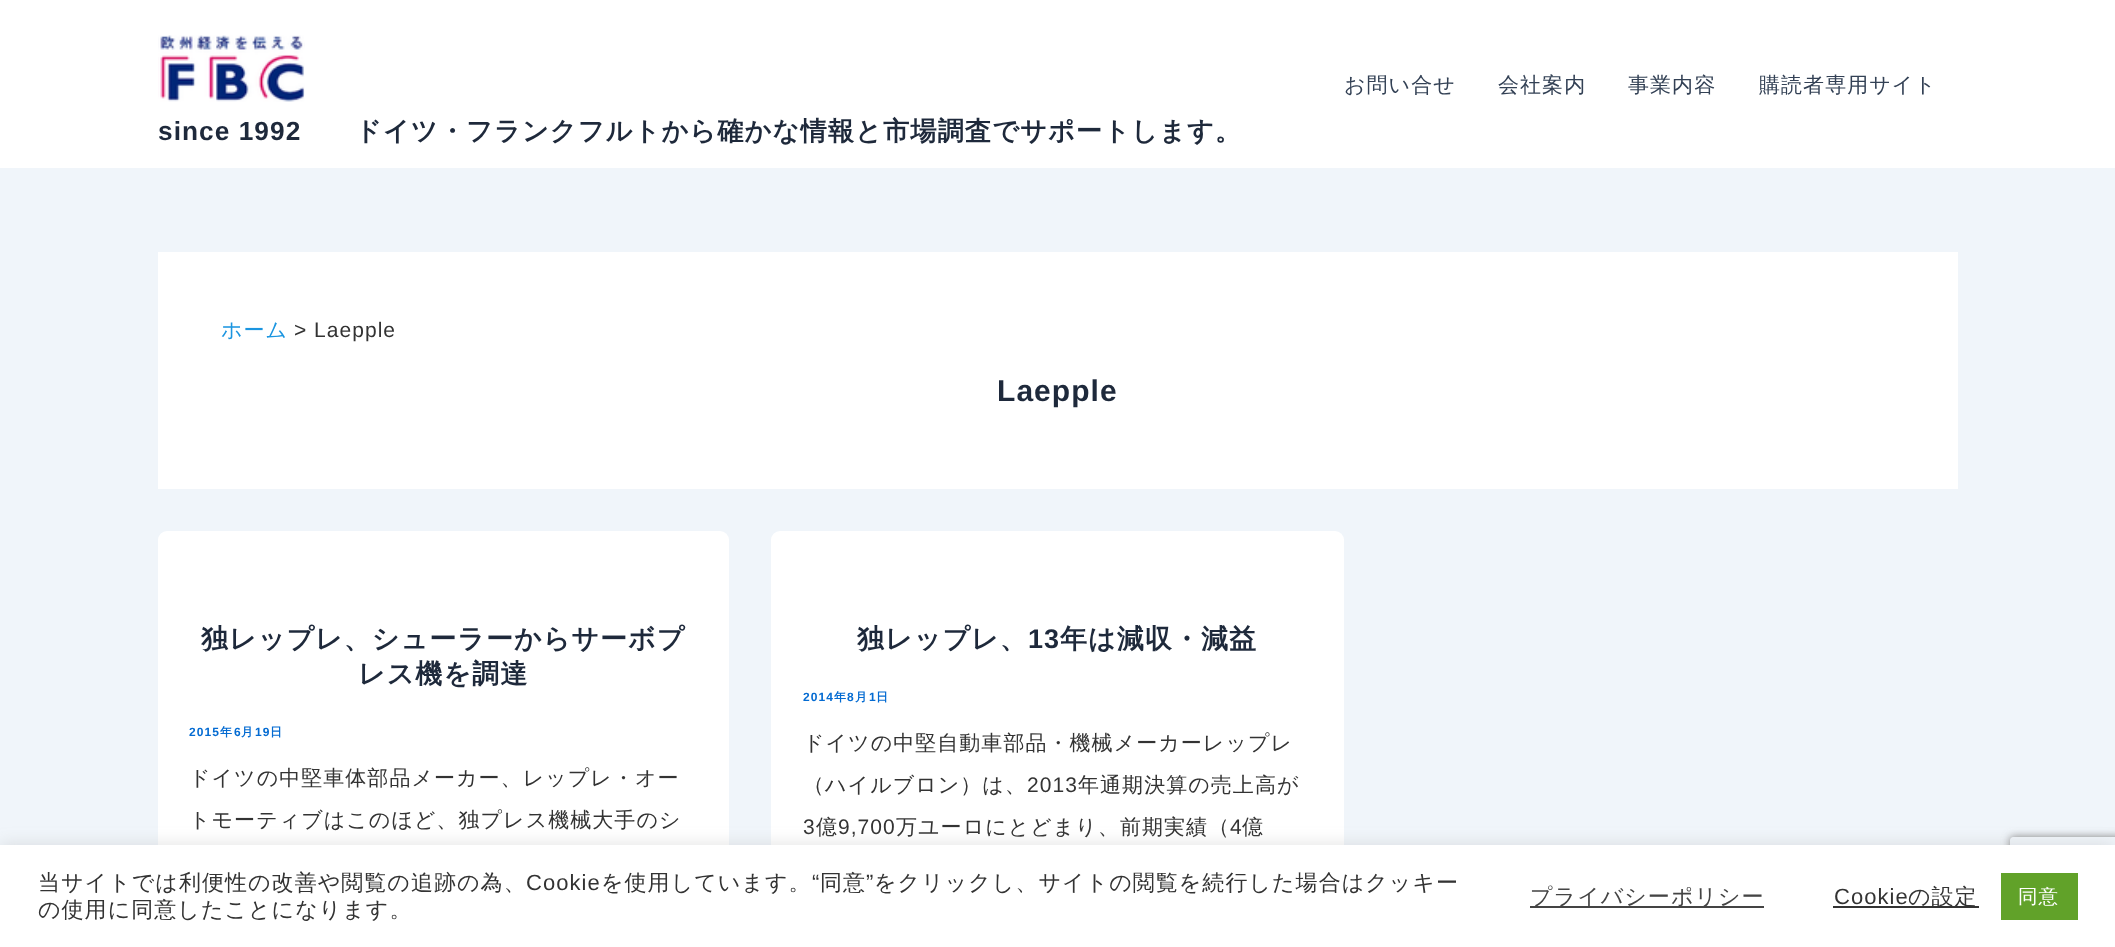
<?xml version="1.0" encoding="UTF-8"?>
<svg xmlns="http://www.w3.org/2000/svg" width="2115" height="947">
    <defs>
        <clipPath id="clip1"><path d="M 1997 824 H 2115 V 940 H 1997 Z M 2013 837 H 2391 C 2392.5 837 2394 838.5 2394 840 V 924 C 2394 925.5 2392.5 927 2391 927 H 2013 C 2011.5 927 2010 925.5 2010 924 V 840 C 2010 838.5 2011.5 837 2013 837 Z" clip-rule="evenodd"/></clipPath>
        <filter id="blur1" x="-50%" y="-200%" width="200%" height="500%"><feGaussianBlur stdDeviation="4"/></filter>
        <filter id="blur2" x="-50%" y="-200%" width="200%" height="500%"><feGaussianBlur stdDeviation="7.5"/></filter>
    </defs>
    <rect width="100%" height="100%" fill="#F0F5FA"/>
    <rect x="0" y="0" width="2115" height="168" fill="#FFFFFF"/>
    <text x="1344" y="92" font-family="WenQuanYi Zen Hei" font-size="21" font-weight="500" letter-spacing="1.05" fill="#334155">お問い合せ</text>
    <text x="1498" y="92" font-family="WenQuanYi Zen Hei" font-size="21" font-weight="500" letter-spacing="1.05" fill="#334155">会社案内</text>
    <text x="1628" y="92" font-family="WenQuanYi Zen Hei" font-size="21" font-weight="500" letter-spacing="1.05" fill="#334155">事業内容</text>
    <text x="1759" y="92" font-family="WenQuanYi Zen Hei" font-size="21" font-weight="500" letter-spacing="1.05" fill="#334155">購読者専用サイト</text>
    <image x="158" y="35" width="147" height="67" href="img_01.png"/>
    <text x="158" y="140" font-family="Liberation Sans" font-size="26.25" font-weight="700" letter-spacing="1.05" fill="#1E293B">since 1992</text>
    <text x="355" y="140" font-family="WenQuanYi Zen Hei" font-size="26.25" font-weight="700" letter-spacing="1.05" fill="#1E293B">ドイツ・フランクフルトから確かな情報と市場調査でサポートします。</text>
    <rect x="158" y="252" width="1800" height="237" fill="#FFFFFF"/>
    <text x="221" y="337" font-family="WenQuanYi Zen Hei" font-size="21" font-weight="500" letter-spacing="1.05" fill="#1B95E0">ホーム</text>
    <text x="294" y="337" font-family="Liberation Sans" font-size="21" letter-spacing="1.05" fill="#333333">&gt;</text>
    <text x="314" y="337" font-family="Liberation Sans" font-size="21" letter-spacing="1.05" fill="#333333">Laepple</text>
    <text x="997" y="401" font-family="Liberation Sans" font-size="30" font-weight="700" letter-spacing="1.05" fill="#1E293B">Laepple</text>
    <rect x="158" y="531" width="571" height="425" rx="9" fill="#FFFFFF"/>
    <text x="201" y="648" font-family="WenQuanYi Zen Hei" font-size="27" font-weight="700" letter-spacing="1.05" fill="#1E293B">独レップレ、シューラーからサーボプ</text>
    <text x="358" y="683" font-family="WenQuanYi Zen Hei" font-size="27" font-weight="700" letter-spacing="1.05" fill="#1E293B">レス機を調達</text>
    <text x="189" y="736" font-family="Liberation Sans" font-size="12" font-weight="700" letter-spacing="1.05" fill="#046BD2">2015</text>
    <text x="220" y="736" font-family="WenQuanYi Zen Hei" font-size="12" font-weight="700" letter-spacing="1.05" fill="#046BD2">年</text>
    <text x="234" y="736" font-family="Liberation Sans" font-size="12" font-weight="700" letter-spacing="1.05" fill="#046BD2">6</text>
    <text x="241" y="736" font-family="WenQuanYi Zen Hei" font-size="12" font-weight="700" letter-spacing="1.05" fill="#046BD2">月</text>
    <text x="255" y="736" font-family="Liberation Sans" font-size="12" font-weight="700" letter-spacing="1.05" fill="#046BD2">19</text>
    <text x="270" y="736" font-family="WenQuanYi Zen Hei" font-size="12" font-weight="700" letter-spacing="1.05" fill="#046BD2">日</text>
    <text x="189" y="785" font-family="WenQuanYi Zen Hei" font-size="21" font-weight="500" letter-spacing="1.05" fill="#333333">ドイツの中堅車体部品メーカー、レップレ・オー</text>
    <text x="189" y="827" font-family="WenQuanYi Zen Hei" font-size="21" font-weight="500" letter-spacing="1.05" fill="#333333">トモーティブはこのほど、独プレス機械大手のシ</text>
    <rect x="771" y="531" width="573" height="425" rx="9" fill="#FFFFFF"/>
    <text x="857" y="648" font-family="WenQuanYi Zen Hei" font-size="27" font-weight="700" letter-spacing="1.05" fill="#1E293B">独レップレ、</text>
    <text x="1028" y="648" font-family="Liberation Sans" font-size="27" font-weight="700" letter-spacing="1.05" fill="#1E293B">13</text>
    <text x="1060" y="648" font-family="WenQuanYi Zen Hei" font-size="27" font-weight="700" letter-spacing="1.05" fill="#1E293B">年は減収・減益</text>
    <text x="803" y="701" font-family="Liberation Sans" font-size="12" font-weight="700" letter-spacing="1.05" fill="#046BD2">2014</text>
    <text x="834" y="701" font-family="WenQuanYi Zen Hei" font-size="12" font-weight="700" letter-spacing="1.05" fill="#046BD2">年</text>
    <text x="847" y="701" font-family="Liberation Sans" font-size="12" font-weight="700" letter-spacing="1.05" fill="#046BD2">8</text>
    <text x="855" y="701" font-family="WenQuanYi Zen Hei" font-size="12" font-weight="700" letter-spacing="1.05" fill="#046BD2">月</text>
    <text x="869" y="701" font-family="Liberation Sans" font-size="12" font-weight="700" letter-spacing="1.05" fill="#046BD2">1</text>
    <text x="876" y="701" font-family="WenQuanYi Zen Hei" font-size="12" font-weight="700" letter-spacing="1.05" fill="#046BD2">日</text>
    <text x="803" y="750" font-family="WenQuanYi Zen Hei" font-size="21" font-weight="500" letter-spacing="1.05" fill="#333333">ドイツの中堅自動車部品・機械メーカーレップレ</text>
    <text x="803" y="792" font-family="WenQuanYi Zen Hei" font-size="21" font-weight="500" letter-spacing="1.05" fill="#333333">（ハイルブロン）は、</text>
    <text x="1027" y="792" font-family="Liberation Sans" font-size="21" letter-spacing="1.05" fill="#333333">2013</text>
    <text x="1078" y="792" font-family="WenQuanYi Zen Hei" font-size="21" font-weight="500" letter-spacing="1.05" fill="#333333">年通期決算の売上高が</text>
    <text x="803" y="834" font-family="Liberation Sans" font-size="21" letter-spacing="1.05" fill="#333333">3</text>
    <text x="816" y="834" font-family="WenQuanYi Zen Hei" font-size="21" font-weight="500" letter-spacing="1.05" fill="#333333">億</text>
    <text x="838" y="834" font-family="Liberation Sans" font-size="21" letter-spacing="1.05" fill="#333333">9,700</text>
    <text x="896" y="834" font-family="WenQuanYi Zen Hei" font-size="21" font-weight="500" letter-spacing="1.05" fill="#333333">万ユーロにとどまり、前期実績（</text>
    <text x="1230" y="834" font-family="Liberation Sans" font-size="21" letter-spacing="1.05" fill="#333333">4</text>
    <text x="1242" y="834" font-family="WenQuanYi Zen Hei" font-size="21" font-weight="500" letter-spacing="1.05" fill="#333333">億</text>
    <g clip-path="url(#clip1)">
        <rect x="2010" y="837" width="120" height="90" rx="3" fill="#808080" filter="url(#blur1)"/>
    </g>
    <rect x="0" y="843" width="2115" height="104" fill="#ACABAB" fill-opacity="0.3" filter="url(#blur2)"/>
    <rect x="0" y="845" width="2115" height="102" fill="#FFFFFF"/>
    <text x="38" y="890" font-family="WenQuanYi Zen Hei" font-size="22" font-weight="500" letter-spacing="1.05" fill="#333333">当サイトでは利便性の改善や閲覧の追跡の為、</text>
    <text x="526" y="890" font-family="Liberation Sans" font-size="22" letter-spacing="1.05" fill="#333333">Cookie</text>
    <text x="601" y="890" font-family="WenQuanYi Zen Hei" font-size="22" font-weight="500" letter-spacing="1.05" fill="#333333">を使用しています。</text>
    <text x="812" y="890" font-family="Liberation Sans" font-size="22" letter-spacing="1.05" fill="#333333">“</text>
    <text x="820" y="890" font-family="WenQuanYi Zen Hei" font-size="22" font-weight="500" letter-spacing="1.05" fill="#333333">同意</text>
    <text x="866" y="890" font-family="Liberation Sans" font-size="22" letter-spacing="1.05" fill="#333333">”</text>
    <text x="874" y="890" font-family="WenQuanYi Zen Hei" font-size="22" font-weight="500" letter-spacing="1.05" fill="#333333">をクリックし、サイトの閲覧を続行した場合はクッキー</text>
    <text x="38" y="917" font-family="WenQuanYi Zen Hei" font-size="22" font-weight="500" letter-spacing="1.05" fill="#333333">の使用に同意したことになります。</text>
    <rect x="1530" y="906" width="234" height="2" fill="#444444"/>
    <text x="1530" y="904" font-family="WenQuanYi Zen Hei" font-size="22" font-weight="500" letter-spacing="1.05" fill="#444444">プライバシーポリシー</text>
    <text x="1834" y="904" font-family="Liberation Sans" font-size="22" letter-spacing="1.05" fill="#333333">Cookie</text>
    <rect x="1833" y="906" width="146" height="2" fill="#333333"/>
    <text x="1908" y="904" font-family="WenQuanYi Zen Hei" font-size="22" font-weight="500" letter-spacing="1.05" fill="#333333">の設定</text>
    <rect x="2001" y="873" width="77" height="47" fill="#61A229"/>
    <text x="2018" y="903" font-family="WenQuanYi Zen Hei" font-size="19.5" font-weight="500" letter-spacing="1.05" fill="#FFFFFF">同意</text>
</svg>
